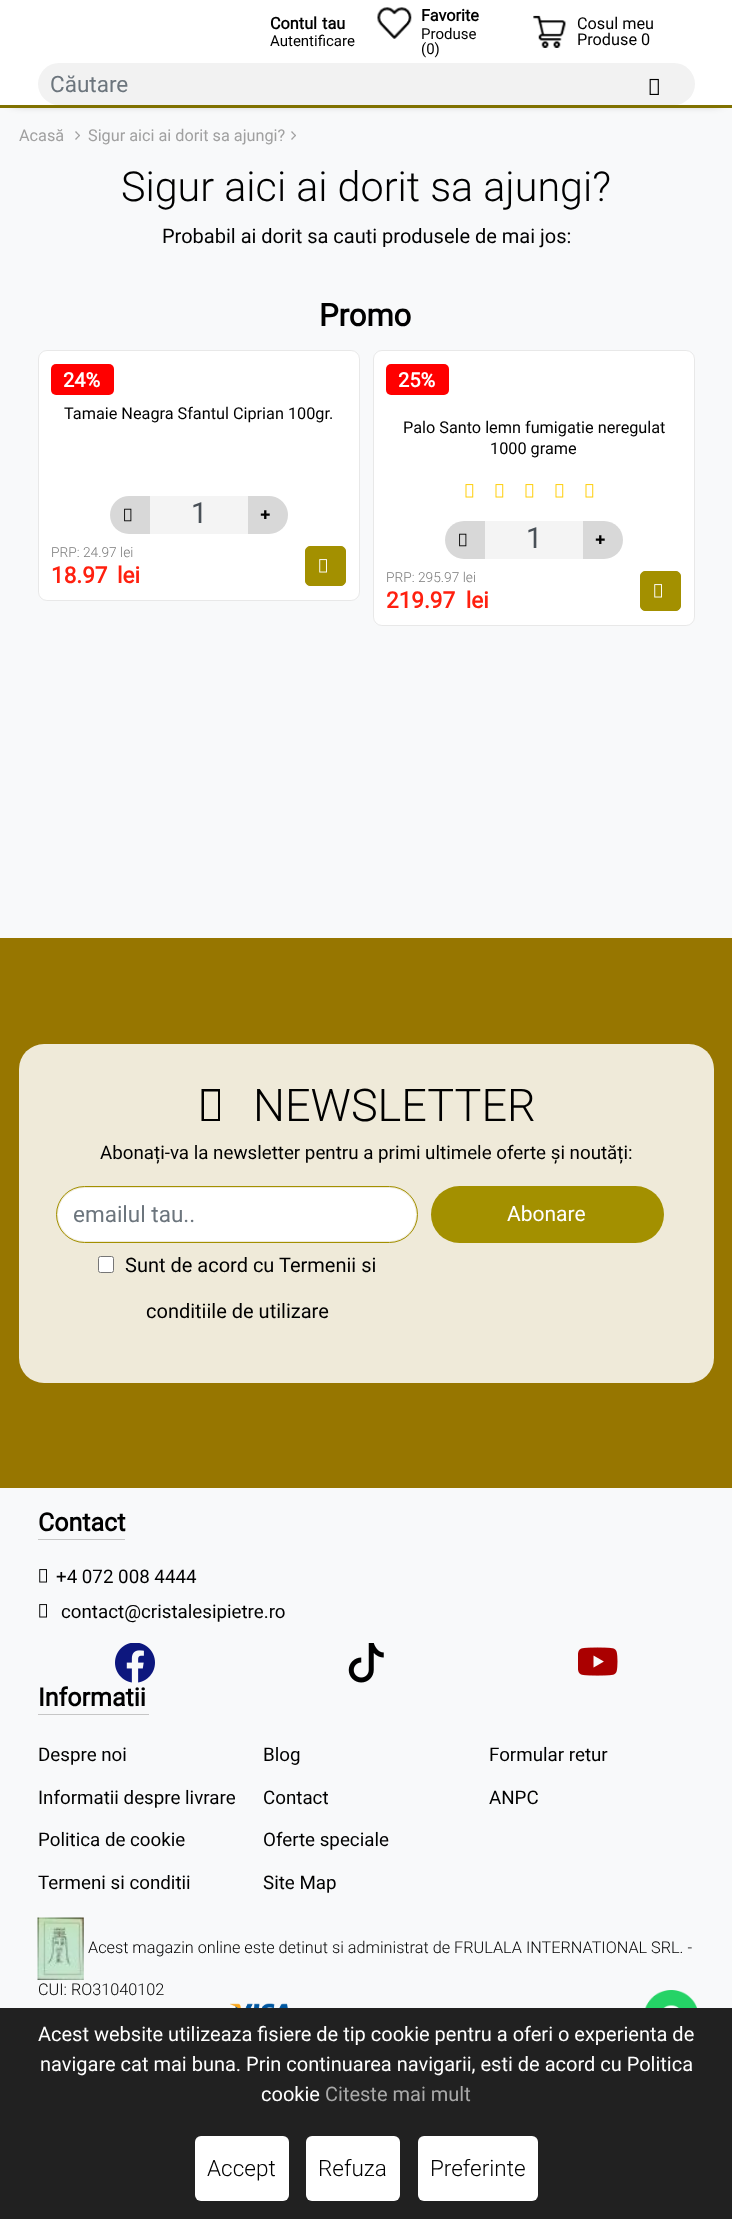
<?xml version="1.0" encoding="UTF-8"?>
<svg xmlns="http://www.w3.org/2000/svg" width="732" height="2219">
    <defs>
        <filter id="blur1" x="-50%" y="-200%" width="200%" height="500%"><feGaussianBlur stdDeviation="6"/></filter>
    </defs>
    <rect width="100%" height="100%" fill="#F8F9FA"/>
    <rect x="13" y="18" width="707" height="82" fill="#000000" filter="url(#blur1)"/>
    <rect x="0" y="0" width="732" height="105" fill="#FFFFFF"/>
    <rect x="0" y="105" width="732" height="3" fill="#807100"/>
    <text x="270" y="29" word-spacing="1" font-family="Roboto" font-size="16.25" font-weight="700" fill="#000000">Contul tau</text>
    <text x="270" y="46" font-family="Roboto" font-size="15" fill="#000000">Autentificare</text>
    <image x="377" y="7" width="35" height="32" href="img_01.png"/>
    <text x="421" y="21" font-family="Roboto" font-size="16.25" font-weight="700" fill="#000000">Favorite</text>
    <text font-family="Roboto" font-size="15" fill="#000000">
        <tspan x="421" y="39">Produse</tspan>
        <tspan x="421" y="54">(0)</tspan>
    </text>
    <image x="533" y="15" width="33" height="33" href="img_02.png"/>
    <text font-family="Roboto" font-size="16.25" fill="#000000">
        <tspan x="577" y="29">Cosul meu</tspan>
        <tspan x="577" y="45">Produse 0</tspan>
    </text>
    <rect x="38" y="63" width="657" height="42" rx="21" fill="#F2F2F2"/>
    <text x="50" y="92" font-family="Roboto" font-size="22.5" fill="#6C757D">Căutare</text>
    <image x="649" y="78" width="10" height="17" href="img_03.png"/>
    <text x="19" y="141" font-family="Roboto" font-size="16.25" fill="#A0A0A0">Acasă</text>
    <path d="M 75 132 L 76 131 L 80 135.5 L 79.5 136.5 Z" fill="#A0A0A0"/>
    <path d="M 75 139 L 79.5 134.5 L 80 135.5 L 76 140 Z" fill="#A0A0A0"/>
    <text x="88" y="141" font-family="Roboto" font-size="16.25" fill="#A0A0A0">Sigur aici ai dorit sa ajungi?</text>
    <path d="M 291 132 L 292 131 L 296 135.5 L 295.5 136.5 Z" fill="#A0A0A0"/>
    <path d="M 291 139 L 295.5 134.5 L 296 135.5 L 292 140 Z" fill="#A0A0A0"/>
    <text x="121" y="201" font-family="Roboto" font-size="41.25" font-weight="300" fill="#000000">Sigur aici ai dorit sa ajungi?</text>
    <text x="162" y="243" font-family="Roboto" font-size="20" fill="#000000">Probabil ai dorit sa cauti produsele de mai jos:</text>
    <text x="319" y="326" font-family="Roboto" font-size="31" font-weight="700" fill="#000000">Promo</text>
    <rect x="38" y="350" width="322" height="251" rx="9" fill="#FFFFFF"/>
    <rect x="38.5" y="350.5" width="321" height="250" rx="8.5" fill="none" stroke="#CBCBCB" stroke-opacity="0.44"/>
    <rect x="51" y="364" width="63" height="31" rx="5" fill="#FF0000"/>
    <text x="63" y="387" font-family="Roboto" font-size="20" font-weight="700" fill="#FFFFFF">24%</text>
    <text x="64" y="419" font-family="Roboto" font-size="16.25" fill="#000000">Tamaie Neagra Sfantul Ciprian 100gr.</text>
    <path d="M 129 496 H 150 V 534 H 129 C 118.5 534 110 525.5 110 515 C 110 504.5 118.5 496 129 496 Z" fill="#D8D8D8"/>
    <image x="124" y="508" width="8" height="14" href="img_04.png"/>
    <rect x="150" y="496" width="98" height="38" fill="#F4F4F4"/>
    <text x="191" y="523" font-family="Roboto" font-size="29" fill="#495057">1</text>
    <path d="M 248 496 H 269 C 279.5 496 288 504.5 288 515 C 288 525.5 279.5 534 269 534 H 248 Z" fill="#D8D8D8"/>
    <text x="260" y="521" font-family="Noto Sans" font-size="18" font-weight="900" fill="#000000">+</text>
    <text x="51" y="557" font-family="Roboto" font-size="13.75" font-weight="300" fill="#7C7C7C">PRP: 24.97 lei</text>
    <text x="51" y="583" word-spacing="4" font-family="Roboto" font-size="22.5" font-weight="700" fill="#FF200F">18.97 lei</text>
    <rect x="305.5" y="546.5" width="40" height="39" rx="4.5" fill="#A39000" stroke="#A39000"/>
    <image x="319" y="559" width="8" height="14" href="img_05.png"/>
    <rect x="373" y="350" width="322" height="276" rx="9" fill="#FFFFFF"/>
    <rect x="373.5" y="350.5" width="321" height="275" rx="8.5" fill="none" stroke="#CBCBCB" stroke-opacity="0.44"/>
    <rect x="386" y="364" width="63" height="31" rx="5" fill="#FF0000"/>
    <text x="398" y="387" font-family="Roboto" font-size="20" font-weight="700" fill="#FFFFFF">25%</text>
    <text x="403" y="433" font-family="Roboto" font-size="16.25" fill="#000000">Palo Santo lemn fumigatie neregulat</text>
    <text x="490" y="454" font-family="Roboto" font-size="16.25" fill="#000000">1000 grame</text>
    <image x="465" y="484" width="9" height="14" href="img_06.png"/>
    <image x="495" y="484" width="9" height="14" href="img_06.png"/>
    <image x="525" y="484" width="9" height="14" href="img_06.png"/>
    <image x="555" y="484" width="9" height="14" href="img_06.png"/>
    <image x="585" y="484" width="9" height="14" href="img_06.png"/>
    <path d="M 464 521 H 485 V 559 H 464 C 453.5 559 445 550.5 445 540 C 445 529.5 453.5 521 464 521 Z" fill="#D8D8D8"/>
    <image x="459" y="533" width="8" height="14" href="img_04.png"/>
    <rect x="485" y="521" width="98" height="38" fill="#F4F4F4"/>
    <text x="526" y="548" font-family="Roboto" font-size="29" fill="#495057">1</text>
    <path d="M 583 521 H 604 C 614.5 521 623 529.5 623 540 C 623 550.5 614.5 559 604 559 H 583 Z" fill="#D8D8D8"/>
    <text x="595" y="546" font-family="Noto Sans" font-size="18" font-weight="900" fill="#000000">+</text>
    <text x="386" y="582" font-family="Roboto" font-size="13.75" font-weight="300" fill="#7C7C7C">PRP: 295.97 lei</text>
    <text x="386" y="608" word-spacing="5" font-family="Roboto" font-size="22.5" font-weight="700" fill="#FF200F">219.97 lei</text>
    <rect x="640.5" y="571.5" width="40" height="39" rx="4.5" fill="#A39000" stroke="#A39000"/>
    <image x="654" y="584" width="8" height="14" href="img_05.png"/>
    <rect x="0" y="938" width="732" height="550" fill="#977600"/>
    <rect x="19" y="1044" width="695" height="339" rx="25" fill="#EFEAD9"/>
    <path d="M 201.5 1121 V 1089 H 220 V 1121 Z M 204 1119 H 218 V 1091.5 H 204 Z" fill="#000000"/>
    <text x="253" y="1121" font-family="Roboto" font-size="45" font-weight="300" fill="#000000">NEWSLETTER</text>
    <text x="100" y="1159" font-family="Roboto" font-size="18.75" fill="#000000">Abonați-va la newsletter pentru a primi ultimele oferte și noutăți:</text>
    <rect x="58" y="1188" width="358" height="53" rx="26.5" fill="#FFFFFF"/>
    <rect x="56.5" y="1186.5" width="361" height="56" rx="28" fill="none" stroke="#A39000"/>
    <text x="73" y="1222" font-family="Roboto" font-size="22.5" fill="#6C757D">emailul tau..</text>
    <rect x="98.5" y="1256.5" width="15" height="16" rx="2" fill="#FFFFFF" stroke="#767676"/>
    <text x="125" y="1272" font-family="Roboto" font-size="20" fill="#000000">Sunt de acord cu Termenii si</text>
    <text x="146" y="1318" font-family="Roboto" font-size="20" fill="#000000">conditiile de utilizare</text>
    <rect x="431" y="1186" width="233" height="57" rx="28.5" fill="#A39000"/>
    <text x="507" y="1221" font-family="Roboto" font-size="21" fill="#FFFFFF">Abonare</text>
    <rect x="38" y="1539" width="87" height="1" fill="#C6C6C6"/>
    <text x="38" y="1531" font-family="Roboto" font-size="25" font-weight="700" fill="#000000">Contact</text>
    <image x="39" y="1569" width="8" height="14" href="img_07.png"/>
    <text x="56" y="1583" font-family="Roboto" font-size="18.75" fill="#000000">+4 072 008 4444</text>
    <image x="39" y="1604" width="8" height="14" href="img_07.png"/>
    <text x="61" y="1618" font-family="Roboto" font-size="18.75" fill="#000000">contact@cristalesipietre.ro</text>
    <image x="115" y="1643" width="40" height="40" href="img_08.png"/>
    <image x="348" y="1643" width="36" height="40" href="img_09.png"/>
    <image x="578" y="1647" width="40" height="29" href="img_10.png"/>
    <rect x="38" y="1714" width="111" height="1" fill="#C6C6C6"/>
    <text x="38" y="1706" font-family="Roboto" font-size="25" font-weight="700" fill="#000000">Informatii</text>
    <text x="38" y="1761" font-family="Roboto" font-size="18.75" fill="#000000">Despre noi</text>
    <text x="263" y="1761" font-family="Roboto" font-size="18.75" fill="#000000">Blog</text>
    <text x="489" y="1761" font-family="Roboto" font-size="18.75" fill="#000000">Formular retur</text>
    <text x="38" y="1804" font-family="Roboto" font-size="18.75" fill="#000000">Informatii despre livrare</text>
    <text x="263" y="1804" font-family="Roboto" font-size="18.75" fill="#000000">Contact</text>
    <text x="489" y="1804" font-family="Roboto" font-size="18.75" fill="#000000">ANPC</text>
    <text x="38" y="1846" font-family="Roboto" font-size="18.75" fill="#000000">Politica de cookie</text>
    <text x="263" y="1846" font-family="Roboto" font-size="18.75" fill="#000000">Oferte speciale</text>
    <text x="38" y="1889" font-family="Roboto" font-size="18.75" fill="#000000">Termeni si conditii</text>
    <text x="263" y="1889" font-family="Roboto" font-size="18.75" fill="#000000">Site Map</text>
    <image x="37" y="1917" width="47" height="63" href="img_11.png"/>
    <text x="88" y="1953" font-family="Roboto" font-size="16.25" font-weight="300" fill="#000000">Acest magazin online este detinut si administrat de FRULALA INTERNATIONAL SRL. -</text>
    <text x="38" y="1995" font-family="Roboto" font-size="16.25" font-weight="300" fill="#000000">CUI: RO31040102</text>
    <image x="230" y="2003" width="58" height="5" href="img_12.png"/>
    <image x="645" y="1990" width="52" height="18" href="img_13.png"/>
    <rect x="0" y="2008" width="732" height="211" fill="#212121"/>
    <text x="38" y="2041" font-family="Roboto" font-size="20" fill="#FFFFFF">Acest website utilizeaza fisiere de tip cookie pentru a oferi o experienta de</text>
    <text x="40" y="2071" font-family="Roboto" font-size="20" fill="#FFFFFF">navigare cat mai buna. Prin continuarea navigarii, esti de acord cu Politica</text>
    <text x="261" y="2101" font-family="Roboto" font-size="20" fill="#FFFFFF">cookie</text>
    <text x="325" y="2101" font-family="Roboto" font-size="20" fill="#A9A9A9">Citeste mai mult</text>
    <rect x="195" y="2136" width="94" height="65" rx="6" fill="#FFFFFF"/>
    <text x="207" y="2176" font-family="Roboto" font-size="22.5" font-weight="300" fill="#000000">Accept</text>
    <rect x="306" y="2136" width="94" height="65" rx="6" fill="#FFFFFF"/>
    <text x="318" y="2176" font-family="Roboto" font-size="22.5" font-weight="300" fill="#000000">Refuza</text>
    <rect x="418" y="2136" width="120" height="65" rx="6" fill="#FFFFFF"/>
    <text x="430" y="2176" font-family="Roboto" font-size="22.5" font-weight="300" fill="#000000">Preferinte</text>
</svg>
